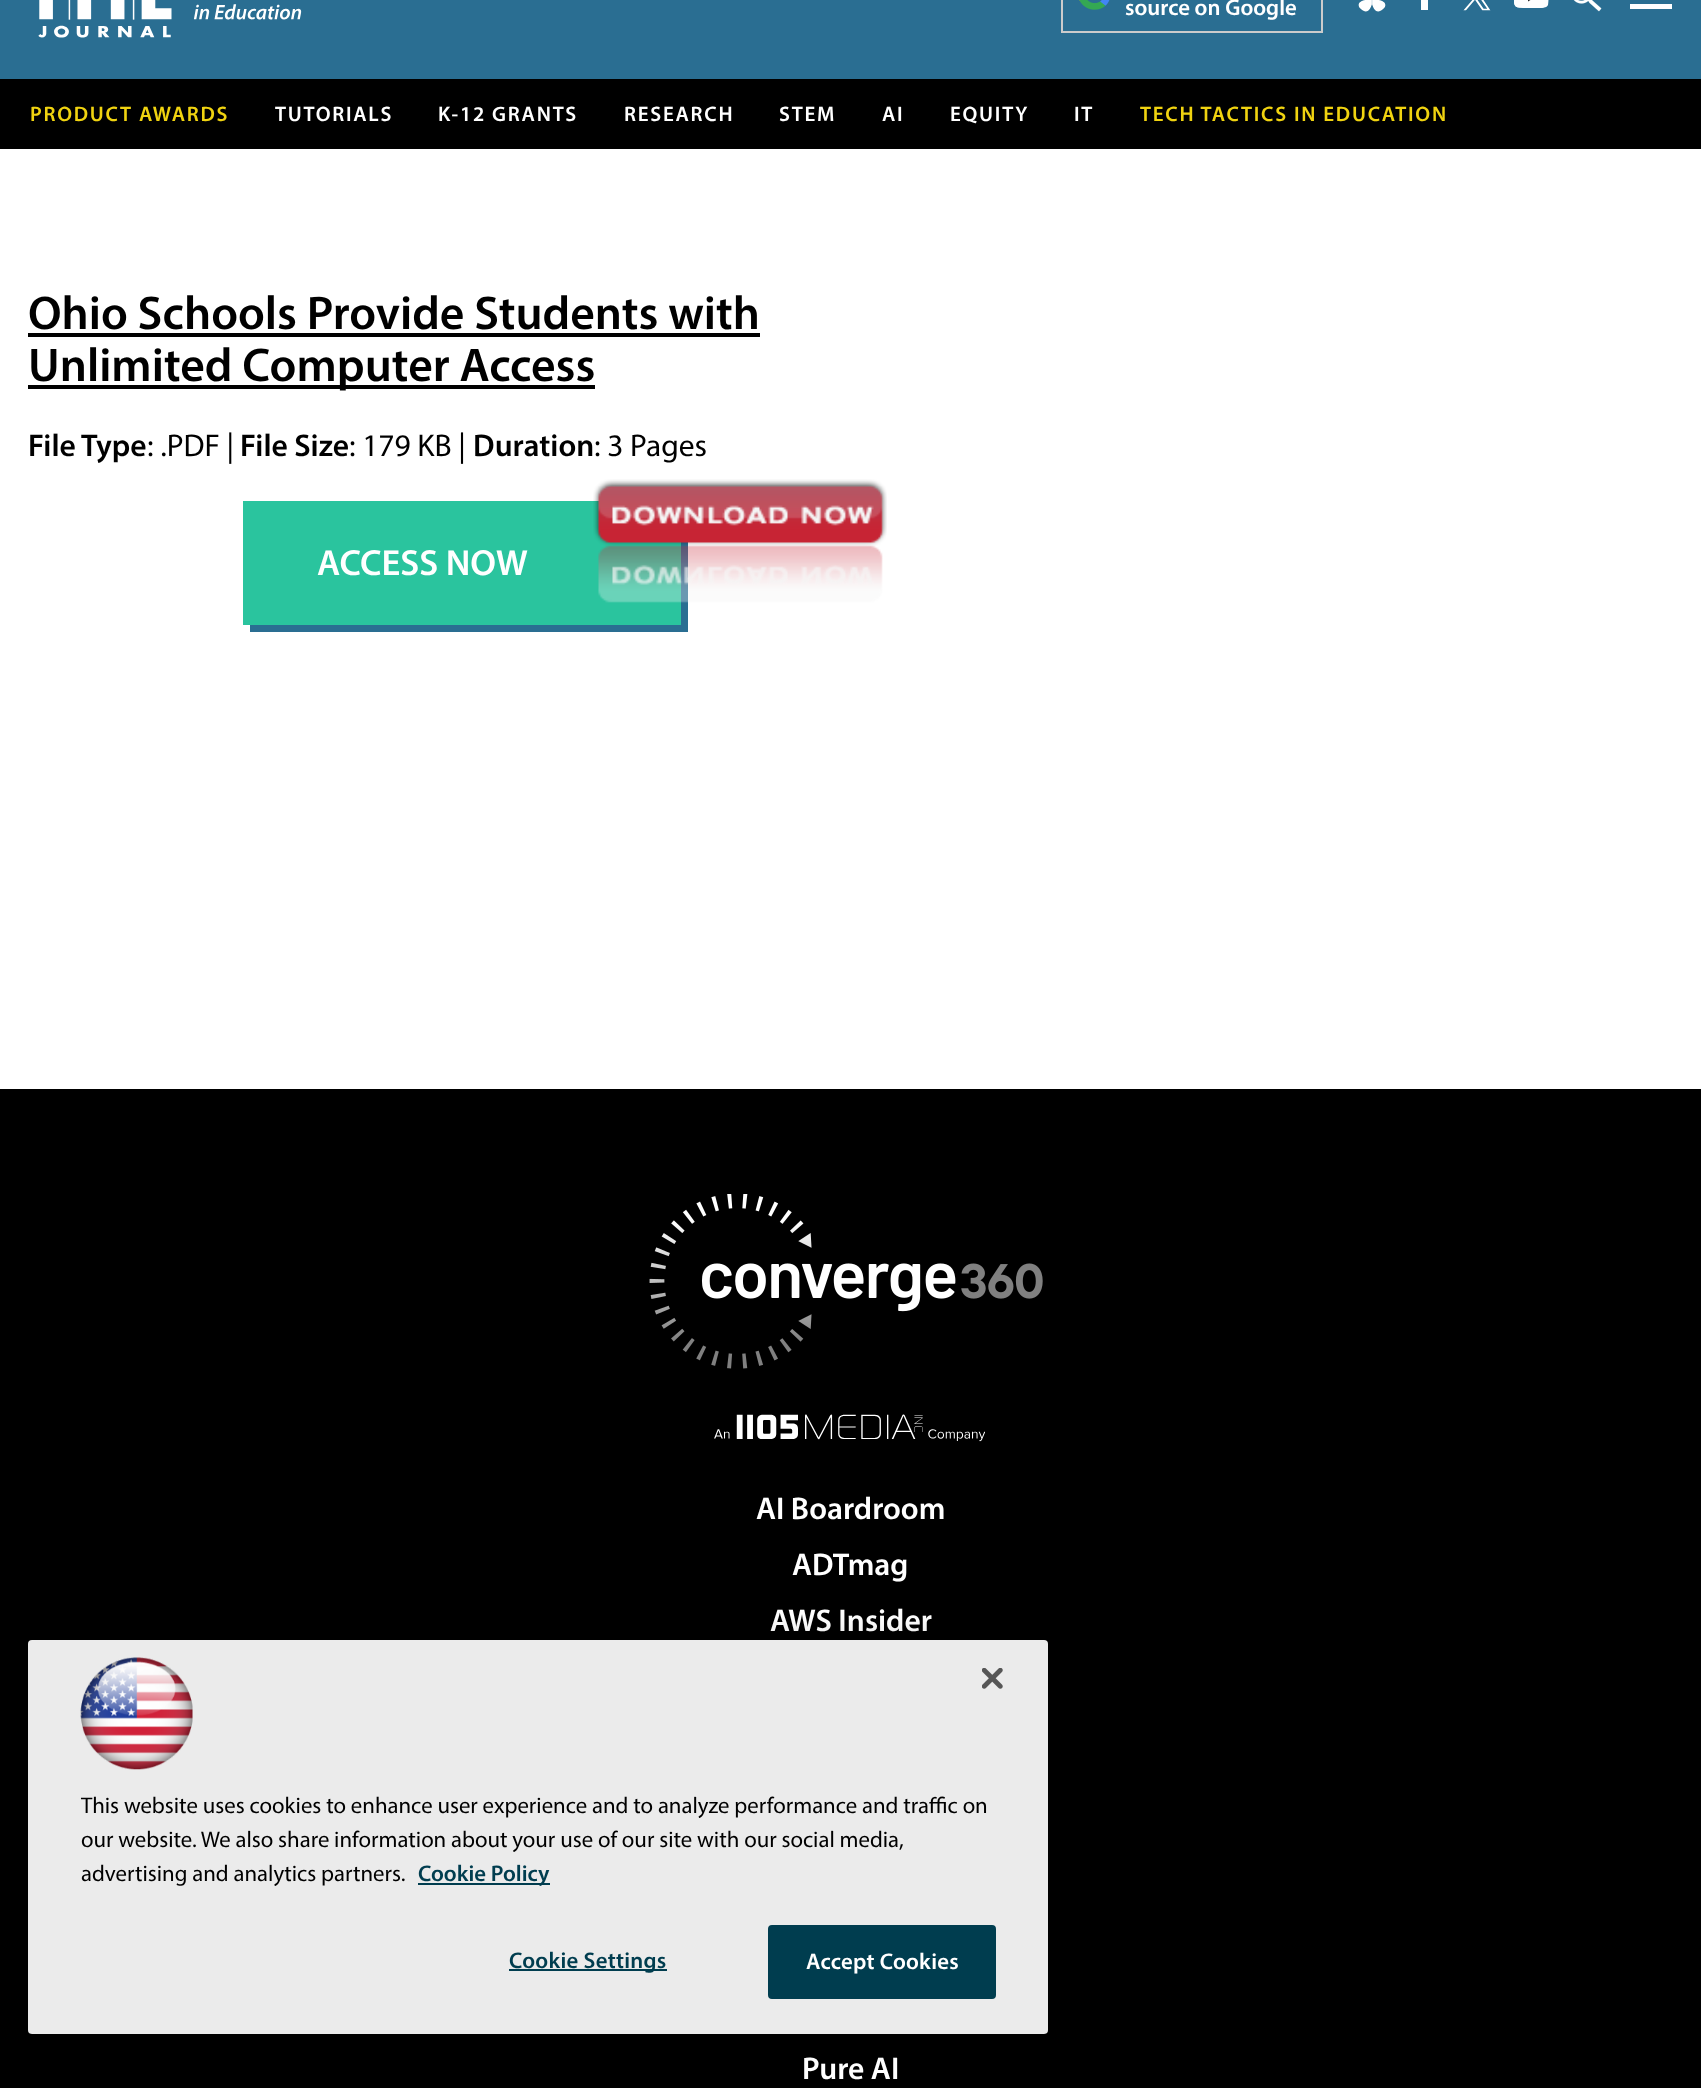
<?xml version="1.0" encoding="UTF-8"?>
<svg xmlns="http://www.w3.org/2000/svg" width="1701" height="2088">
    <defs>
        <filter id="blur1" x="-50%" y="-200%" width="200%" height="500%"><feGaussianBlur stdDeviation="16"/></filter>
    </defs>
    <rect width="100%" height="100%" fill="#FFFFFF"/>
    <rect x="0" y="0" width="1701" height="79" fill="#2A6E92"/>
    <image x="38" y="0" width="264" height="38" href="img_01.png"/>
    <rect x="1062" y="-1" width="260" height="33" fill="none" stroke="#CCCCCC" stroke-width="2"/>
    <image x="1079" y="0" width="31" height="10" href="img_02.png"/>
    <text x="1125" y="15" font-family="Myriad" font-size="22.75" font-weight="600" fill="#FFFFFF">source on Google</text>
    <image x="1358" y="0" width="28" height="12" href="img_03.png"/>
    <rect x="1421" y="0" width="7" height="10" fill="#FFFFFF"/>
    <image x="1463" y="0" width="28" height="11" href="img_04.png"/>
    <image x="1514" y="0" width="35" height="8" href="img_05.png"/>
    <image x="1573" y="0" width="29" height="12" href="img_06.png"/>
    <rect x="1630" y="4" width="42" height="5" fill="#FFFFFF"/>
    <rect x="0" y="79" width="1701" height="70" fill="#000000"/>
    <text x="30" y="121" font-family="Myriad" font-size="21" font-weight="600" letter-spacing="1.75" fill="#F0D310">PRODUCT AWARDS</text>
    <text x="275" y="121" font-family="Myriad" font-size="21" font-weight="600" letter-spacing="1.75" fill="#FFFFFF">TUTORIALS</text>
    <text x="438" y="121" font-family="Myriad" font-size="21" font-weight="600" letter-spacing="1.75" fill="#FFFFFF">K-12 GRANTS</text>
    <text x="624" y="121" font-family="Myriad" font-size="21" font-weight="600" letter-spacing="1.75" fill="#FFFFFF">RESEARCH</text>
    <text x="779" y="121" font-family="Myriad" font-size="21" font-weight="600" letter-spacing="1.75" fill="#FFFFFF">STEM</text>
    <text x="882" y="121" font-family="Myriad" font-size="21" font-weight="600" letter-spacing="1.75" fill="#FFFFFF">AI</text>
    <text x="950" y="121" font-family="Myriad" font-size="21" font-weight="600" letter-spacing="1.75" fill="#FFFFFF">EQUITY</text>
    <text x="1074" y="121" font-family="Myriad" font-size="21" font-weight="600" letter-spacing="1.75" fill="#FFFFFF">IT</text>
    <text x="1140" y="121" font-family="Myriad" font-size="21" font-weight="600" letter-spacing="1.75" fill="#F0D310">TECH TACTICS IN EDUCATION</text>
    <text x="28" y="329" font-family="Myriad" font-size="47.6" font-weight="600" fill="#000000">Ohio Schools Provide Students with</text>
    <rect x="28" y="333" width="732" height="4" fill="#000000"/>
    <rect x="28" y="385" width="567" height="4" fill="#000000"/>
    <text x="28" y="381" font-family="Myriad" font-size="47.6" font-weight="600" fill="#000000">Unlimited Computer Access</text>
    <text x="28" y="456" font-family="Myriad" font-size="31.5" font-weight="600" fill="#000000">File Type</text>
    <text x="147" y="456" font-family="Myriad" font-size="31.5" fill="#000000">: .PDF |</text>
    <text x="240" y="456" font-family="Myriad" font-size="31.5" font-weight="600" fill="#000000">File Size</text>
    <text x="349" y="456" font-family="Myriad" font-size="31.5" fill="#000000">: 179 KB |</text>
    <text x="473" y="456" font-family="Myriad" font-size="31.5" font-weight="600" fill="#000000">Duration</text>
    <text x="594" y="456" font-family="Myriad" font-size="31.5" fill="#000000">: 3 Pages</text>
    <path d="M 250 625 V 632 H 688 V 508 H 681 V 625 Z" fill="#2A6E92"/>
    <rect x="243" y="501" width="438" height="124" fill="#2AC49E"/>
    <image x="593" y="479" width="294" height="124" href="img_07.png"/>
    <text x="317" y="575" font-family="Myriad" font-size="36.5" font-weight="600" fill="#FFFFFF">ACCESS NOW</text>
    <rect x="0" y="1089" width="1701" height="999" fill="#000000"/>
    <image x="649" y="1194" width="394" height="175" href="img_08.png"/>
    <image x="714" y="1414" width="271" height="28" href="img_09.png"/>
    <text x="756" y="1519" font-family="Myriad" font-size="31.5" font-weight="600" fill="#FFFFFF">AI Boardroom</text>
    <text x="792" y="1575" font-family="Myriad" font-size="31.5" font-weight="600" fill="#FFFFFF">ADTmag</text>
    <text x="770" y="1631" font-family="Myriad" font-size="31.5" font-weight="600" fill="#FFFFFF">AWS Insider</text>
    <text x="802" y="2079" font-family="Myriad" font-size="31.5" font-weight="600" fill="#FFFFFF">Pure AI</text>
    <rect x="28" y="1640" width="1020" height="394" rx="4" fill="#000000" fill-opacity="0.2" filter="url(#blur1)"/>
    <rect x="28" y="1640" width="1020" height="394" rx="4" fill="#EBEBEB"/>
    <image x="982" y="1668" width="21" height="21" href="img_10.png"/>
    <image x="80" y="1657" width="113" height="113" href="img_11.png"/>
    <text font-family="Myriad" font-size="22.75" fill="#000000">
        <tspan x="81" y="1813">This website uses cookies to enhance user experience and to analyze performance and traffic on</tspan>
        <tspan x="81" y="1847">our website. We also share information about your use of our site with our social media,</tspan>
        <tspan x="81" y="1881">advertising and analytics partners.</tspan>
    </text>
    <rect x="418" y="1883" width="132" height="2" fill="#003D4F"/>
    <text x="418" y="1881" font-family="Myriad" font-size="22.75" font-weight="600" fill="#003D4F">Cookie Policy</text>
    <rect x="509" y="1969" width="158" height="2" fill="#003D4F"/>
    <text x="509" y="1968" font-family="Myriad" font-size="22.75" font-weight="600" letter-spacing="0.25" fill="#003D4F">Cookie Settings</text>
    <rect x="769" y="1926" width="226" height="72" rx="3" fill="#003D4F" stroke="#003D4F" stroke-width="2"/>
    <text x="806" y="1969" font-family="Myriad" font-size="22.75" font-weight="600" letter-spacing="0.25" fill="#FFFFFF">Accept Cookies</text>
</svg>
